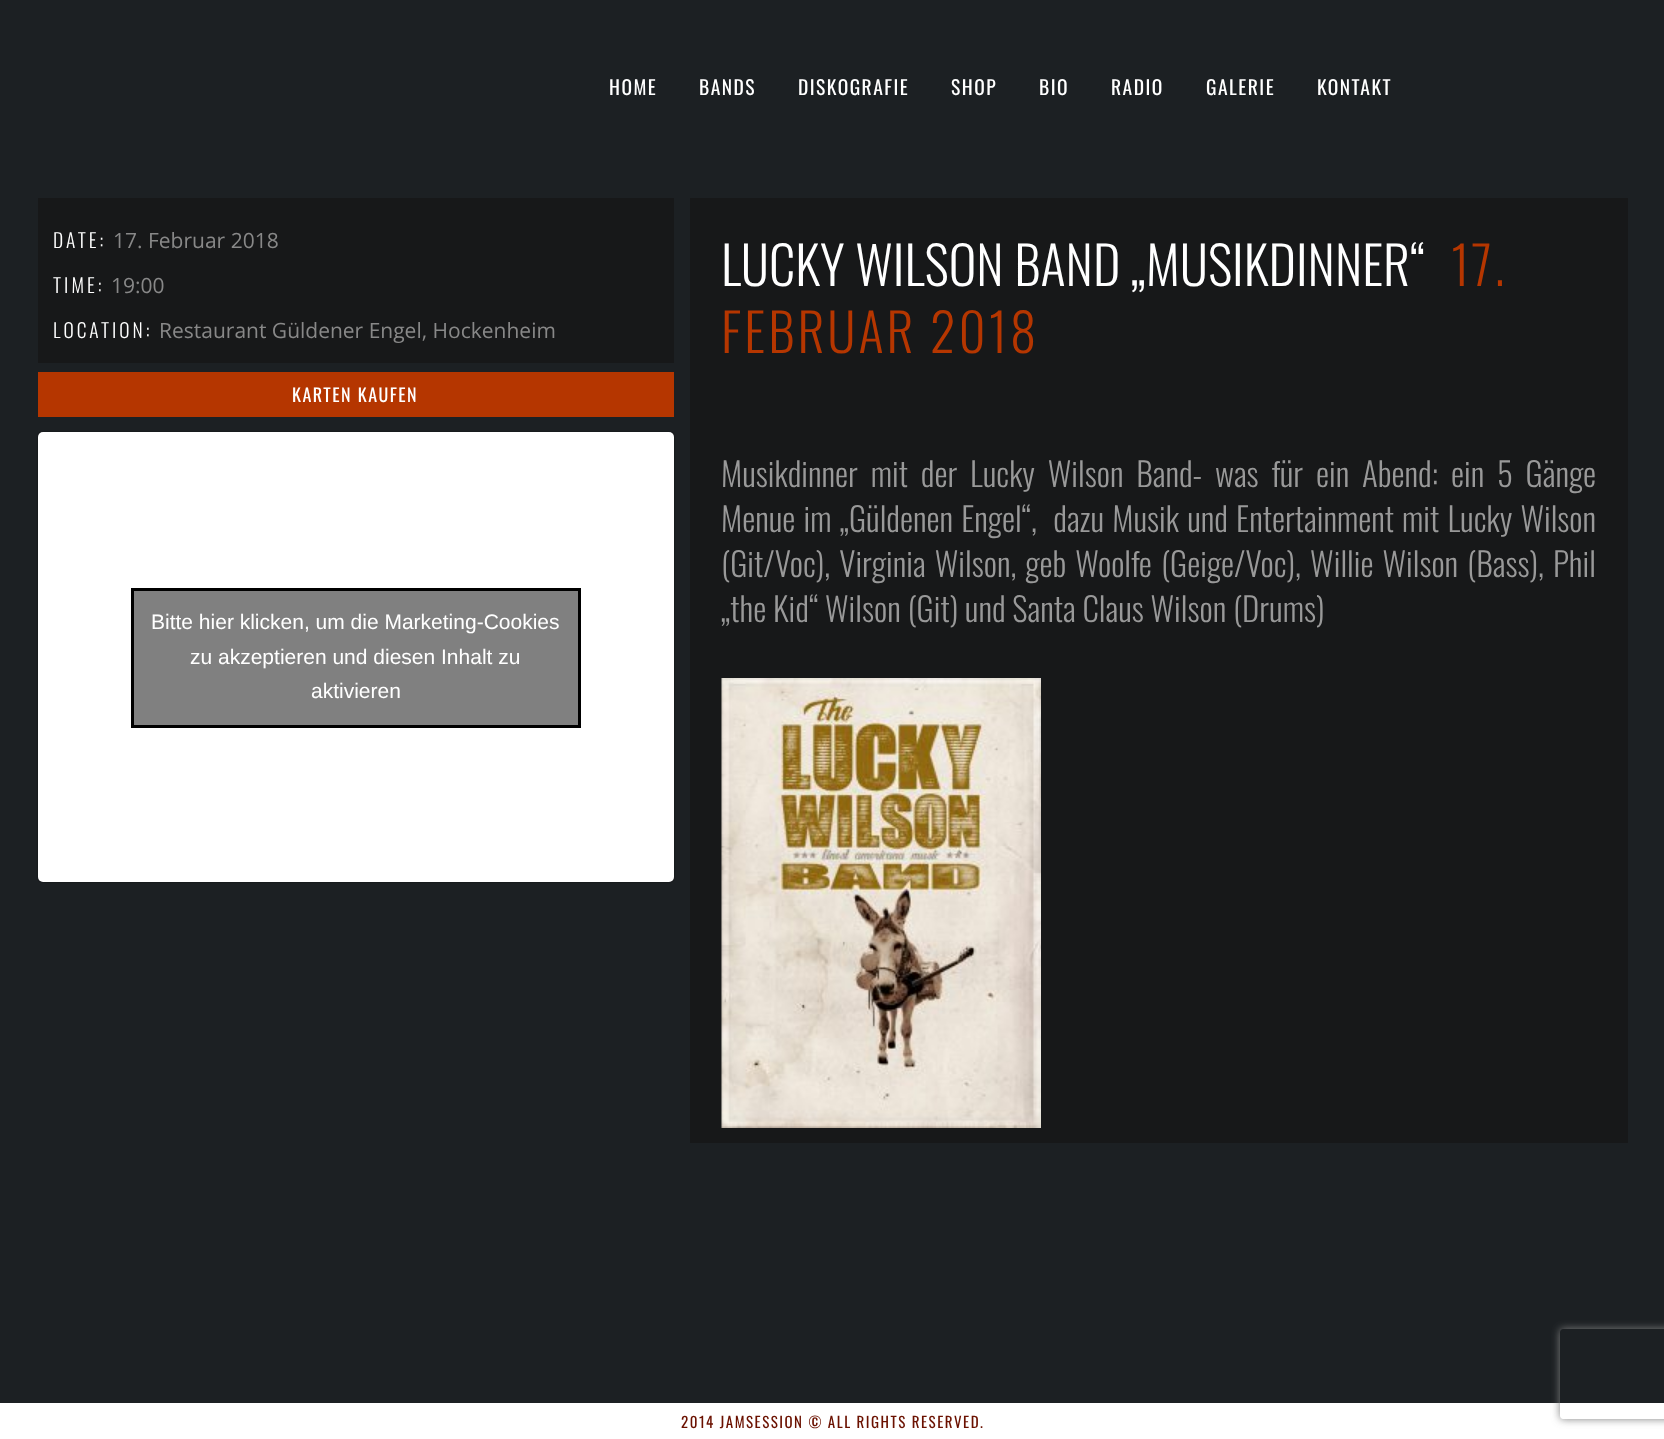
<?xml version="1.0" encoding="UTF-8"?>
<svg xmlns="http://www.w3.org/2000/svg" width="1664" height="1439">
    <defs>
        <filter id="blur1" x="-50%" y="-200%" width="200%" height="500%"><feGaussianBlur stdDeviation="1"/></filter>
        <clipPath id="clip1"><path d="M 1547 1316 H 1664 V 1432 H 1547 Z M 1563 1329 H 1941 C 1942.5 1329 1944 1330.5 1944 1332 V 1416 C 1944 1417.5 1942.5 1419 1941 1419 H 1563 C 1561.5 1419 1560 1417.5 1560 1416 V 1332 C 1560 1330.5 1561.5 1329 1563 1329 Z" clip-rule="evenodd"/></clipPath>
        <filter id="blur2" x="-50%" y="-200%" width="200%" height="500%"><feGaussianBlur stdDeviation="4"/></filter>
    </defs>
    <rect width="100%" height="100%" fill="#1C2023"/>
    <text x="609" y="95" font-family="Oswald" font-size="19.5" letter-spacing="1.5" fill="#FFFFFF">HOME</text>
    <text x="699" y="95" font-family="Oswald" font-size="19.5" letter-spacing="1.5" fill="#FFFFFF">BANDS</text>
    <text x="798" y="95" font-family="Oswald" font-size="19.5" letter-spacing="1.5" fill="#FFFFFF">DISKOGRAFIE</text>
    <text x="951" y="95" font-family="Oswald" font-size="19.5" letter-spacing="1.5" fill="#FFFFFF">SHOP</text>
    <text x="1039" y="95" font-family="Oswald" font-size="19.5" letter-spacing="1.5" fill="#FFFFFF">BIO</text>
    <text x="1111" y="95" font-family="Oswald" font-size="19.5" letter-spacing="1.5" fill="#FFFFFF">RADIO</text>
    <text x="1206" y="95" font-family="Oswald" font-size="19.5" letter-spacing="1.5" fill="#FFFFFF">GALERIE</text>
    <text x="1317" y="95" font-family="Oswald" font-size="19.5" letter-spacing="1.5" fill="#FFFFFF">KONTAKT</text>
    <rect x="38" y="198" width="636" height="165" fill="#171819"/>
    <text x="53" y="248" font-family="Oswald" font-size="19.5" font-weight="300" letter-spacing="3" fill="#FFFFFF">DATE:</text>
    <text x="113" y="248" font-family="Open Sans" font-size="21" fill="#888888">17. Februar 2018</text>
    <text x="53" y="293" font-family="Oswald" font-size="19.5" font-weight="300" letter-spacing="3" fill="#FFFFFF">TIME:</text>
    <text x="111" y="293" font-family="Open Sans" font-size="21" fill="#888888">19:00</text>
    <text x="53" y="338" font-family="Oswald" font-size="19.5" font-weight="300" letter-spacing="3" fill="#FFFFFF">LOCATION:</text>
    <text x="159" y="338" font-family="Open Sans" font-size="21" fill="#888888">Restaurant Güldener Engel, Hockenheim</text>
    <rect x="38" y="372" width="636" height="45" fill="#B53600"/>
    <text x="292" y="402" font-family="Oswald" font-size="18" letter-spacing="1.5" fill="#FFFFFF">KARTEN KAUFEN</text>
    <rect x="38" y="432" width="636" height="450" rx="5" fill="#000000" fill-opacity="0.5" filter="url(#blur1)"/>
    <rect x="38" y="432" width="636" height="450" rx="5" fill="#FFFFFF"/>
    <rect x="132.5" y="589.5" width="447" height="137" fill="#808080" stroke="#000000" stroke-width="3"/>
    <text x="151" y="629" font-family="Liberation Sans" font-size="21" fill="#FFFFFF">Bitte hier klicken, um die Marketing-Cookies</text>
    <text x="190" y="664" font-family="Liberation Sans" font-size="21" fill="#FFFFFF">zu akzeptieren und diesen Inhalt zu</text>
    <text x="311" y="698" font-family="Liberation Sans" font-size="21" fill="#FFFFFF">aktivieren</text>
    <rect x="690" y="198" width="938" height="945" fill="#171819"/>
    <text x="721" y="286" font-family="Oswald" font-size="52.5" font-weight="300" fill="#FFFFFF">LUCKY WILSON BAND „MUSIKDINNER“</text>
    <text x="1451" y="286" font-family="Oswald" font-size="52.5" font-weight="300" letter-spacing="3" fill="#B53600">17.</text>
    <text x="721" y="353" font-family="Oswald" font-size="52.5" font-weight="300" letter-spacing="3" fill="#B53600">FEBRUAR 2018</text>
    <text font-family="Oswald" font-size="33" font-weight="300" fill="#999999" xml:space="preserve"><tspan x="721" y="487" word-spacing="6.1">Musikdinner mit der Lucky Wilson Band- was für ein Abend: ein 5 Gänge</tspan><tspan x="721" y="532" word-spacing="1.4">Menue im „Güldenen Engel“,  dazu Musik und Entertainment mit Lucky Wilson</tspan><tspan x="721" y="577" word-spacing="2.25">(Git/Voc), Virginia Wilson, geb Woolfe (Geige/Voc), Willie Wilson (Bass), Phil</tspan><tspan x="721" y="622">„the Kid“ Wilson (Git) und Santa Claus Wilson (Drums)</tspan></text>
    <image x="721" y="678" width="320" height="450" href="img_01.png"/>
    <rect x="0" y="1403" width="1664" height="36" fill="#FFFFFF"/>
    <text x="681" y="1428" font-family="Oswald" font-size="15" letter-spacing="1.5" fill="#6B1100">2014 JAMSESSION © ALL RIGHTS RESERVED.</text>
    <g clip-path="url(#clip1)">
        <rect x="1560" y="1329" width="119" height="90" rx="3" fill="#808080" filter="url(#blur2)"/>
    </g>
</svg>
